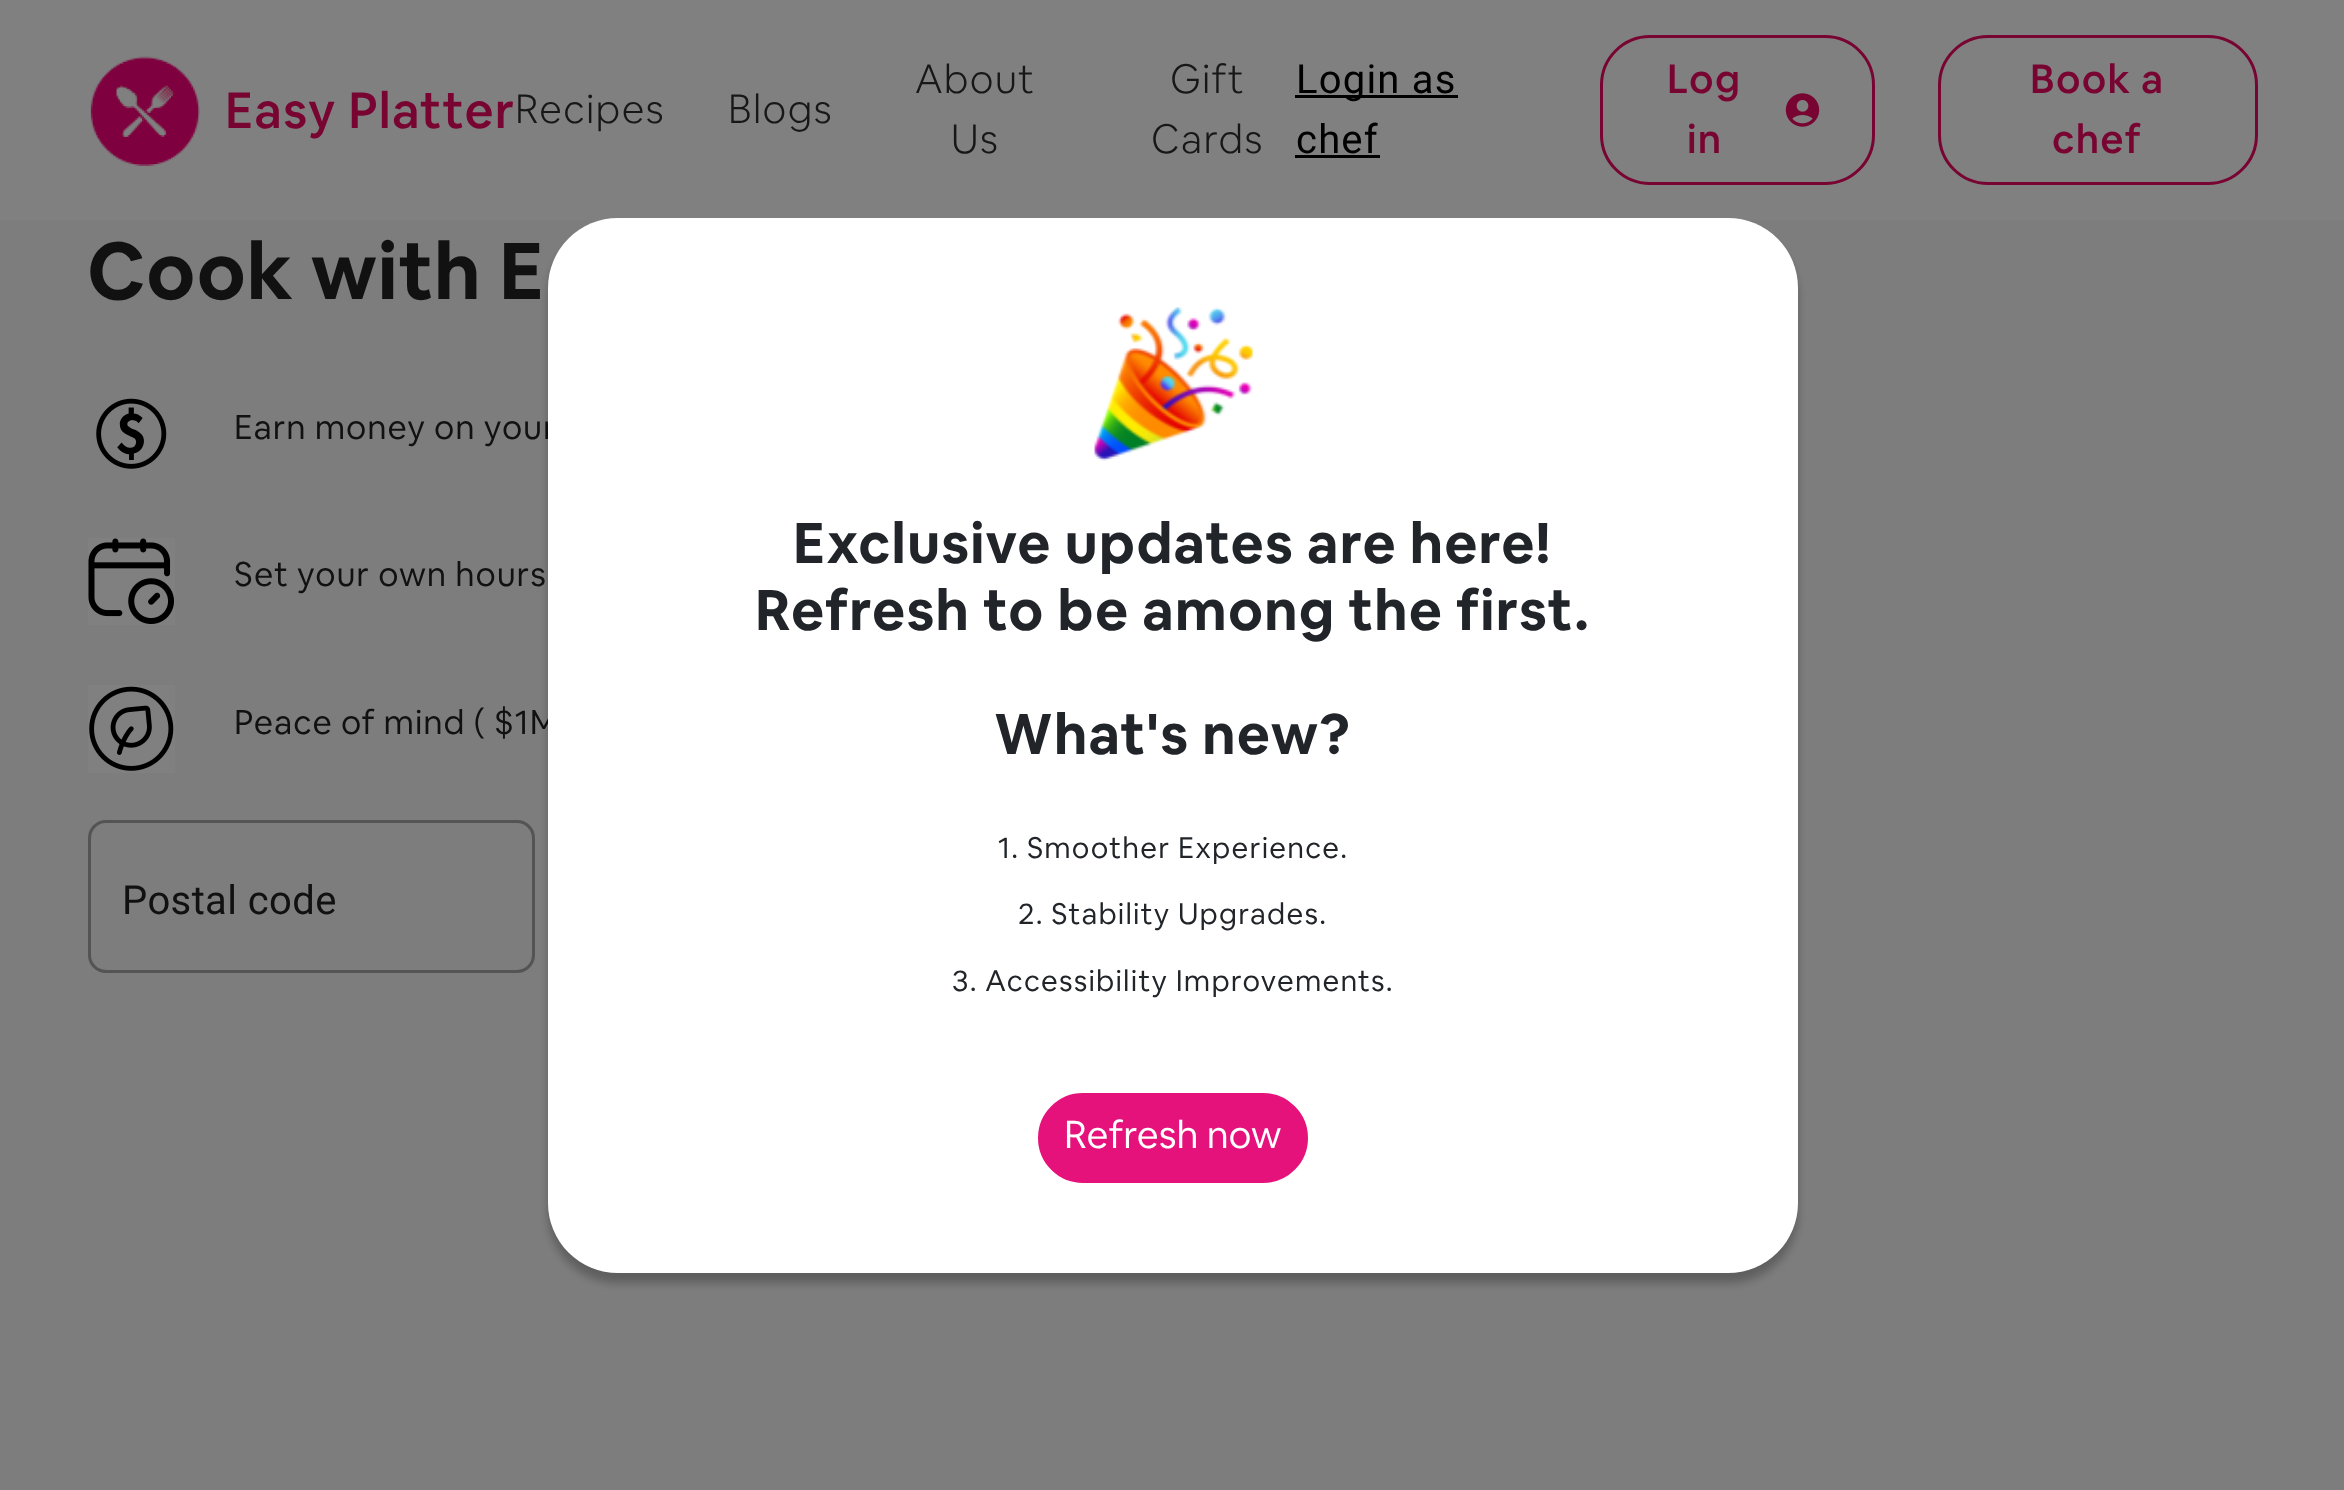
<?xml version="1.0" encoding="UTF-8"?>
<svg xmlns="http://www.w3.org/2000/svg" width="2344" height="1490">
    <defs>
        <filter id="blur1" x="-50%" y="-200%" width="200%" height="500%"><feGaussianBlur stdDeviation="5"/></filter>
    </defs>
    <rect width="100%" height="100%" fill="#7D7D7D"/>
    <rect x="0" y="0" width="2344" height="220" fill="#808080"/>
    <image x="90" y="56" width="110" height="111" href="img_01.png"/>
    <text x="225" y="128" font-family="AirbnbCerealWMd" font-size="50" font-weight="500" letter-spacing="1.2" fill="#780432">Easy Platter</text>
    <text x="515" y="123" font-family="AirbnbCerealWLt" font-size="40" font-weight="300" letter-spacing="1.2" fill="#171717">Recipes</text>
    <text x="728" y="123" font-family="AirbnbCerealWLt" font-size="40" font-weight="300" letter-spacing="1.2" fill="#171717">Blogs</text>
    <text x="915" y="93" font-family="AirbnbCerealWLt" font-size="40" font-weight="300" letter-spacing="1.2" fill="#171717">About</text>
    <text x="951" y="153" font-family="AirbnbCerealWLt" font-size="40" font-weight="300" letter-spacing="1.2" fill="#171717">Us</text>
    <text x="1170" y="93" font-family="AirbnbCerealWLt" font-size="40" font-weight="300" letter-spacing="1.2" fill="#171717">Gift</text>
    <text x="1151" y="153" font-family="AirbnbCerealWLt" font-size="40" font-weight="300" letter-spacing="1.2" fill="#171717">Cards</text>
    <rect x="1295" y="95" width="163" height="3" fill="#000000"/>
    <text font-family="Roboto" font-size="40" letter-spacing="1.2" fill="#000000">
        <tspan x="1296" y="93">Login as</tspan>
        <tspan x="1296" y="153">chef</tspan>
    </text>
    <rect x="1295" y="155" width="85" height="3" fill="#000000"/>
    <rect x="1601.5" y="36.5" width="272" height="147" rx="48.5" fill="none" stroke="#780432" stroke-width="3"/>
    <text x="1667" y="93" font-family="AirbnbCerealWMd" font-size="40" font-weight="500" letter-spacing="1.2" fill="#780432">Log</text>
    <text x="1687" y="153" font-family="AirbnbCerealWMd" font-size="40" font-weight="500" letter-spacing="1.2" fill="#780432">in</text>
    <image x="1785" y="93" width="35" height="34" href="img_02.png"/>
    <rect x="1939.5" y="36.5" width="317" height="147" rx="48.5" fill="none" stroke="#780432" stroke-width="3"/>
    <text x="2030" y="93" font-family="AirbnbCerealWMd" font-size="40" font-weight="500" letter-spacing="1.2" fill="#780432">Book a</text>
    <text x="2052" y="153" font-family="AirbnbCerealWMd" font-size="40" font-weight="500" letter-spacing="1.2" fill="#780432">chef</text>
    <text x="87" y="299" font-family="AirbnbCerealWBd" font-size="78.75" font-weight="700" letter-spacing="0.9" fill="#111111">Cook with E</text>
    <image x="96" y="398" width="71" height="71" href="img_03.png"/>
    <text x="234" y="439" font-family="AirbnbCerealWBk" font-size="33.75" letter-spacing="0.9" fill="#111111">Earn money on your</text>
    <image x="88" y="538" width="87" height="87" href="img_04.png"/>
    <text x="234" y="586" font-family="AirbnbCerealWBk" font-size="33.75" letter-spacing="0.9" fill="#111111">Set your own hours</text>
    <image x="88" y="685" width="87" height="88" href="img_05.png"/>
    <text x="234" y="734" font-family="AirbnbCerealWBk" font-size="33.75" letter-spacing="0.9" fill="#111111">Peace of mind ( $1M</text>
    <rect x="89.5" y="821.5" width="444" height="150" rx="16.5" fill="none" stroke="#545454" stroke-width="3"/>
    <text x="122" y="914" font-family="Roboto" font-size="40" letter-spacing="0.4" fill="#111111">Postal code</text>
    <rect x="548" y="228" width="1250" height="1055" rx="70" fill="#000000" fill-opacity="0.25" filter="url(#blur1)"/>
    <rect x="548" y="218" width="1250" height="1055" rx="70" fill="#FFFFFF"/>
    <image x="1094" y="307" width="159" height="154" href="img_06.png"/>
    <text x="793" y="563" font-family="AirbnbCerealWBd" font-size="56.25" font-weight="700" letter-spacing="1.2" fill="#212529">Exclusive updates are here!</text>
    <text x="755" y="630" font-family="AirbnbCerealWBd" font-size="56.25" font-weight="700" letter-spacing="1.2" fill="#212529">Refresh to be among the first.</text>
    <text x="994" y="754" font-family="AirbnbCerealWBd" font-size="56.25" font-weight="700" letter-spacing="1.2" fill="#212529">What's new?</text>
    <text x="998" y="858" font-family="AirbnbCerealWBk" font-size="29.25" letter-spacing="1.2" fill="#212529">1. Smoother Experience.</text>
    <text x="1018" y="924" font-family="AirbnbCerealWBk" font-size="29.25" letter-spacing="1.2" fill="#212529">2. Stability Upgrades.</text>
    <text x="952" y="991" font-family="AirbnbCerealWBk" font-size="29.25" letter-spacing="1.2" fill="#212529">3. Accessibility Improvements.</text>
    <rect x="1039.5" y="1094.5" width="267" height="87" rx="43.5" fill="#E6127B" stroke="#E6127B" stroke-width="3"/>
    <text x="1064" y="1148" font-family="AirbnbCerealWBk" font-size="38.25" fill="#FFFFFF">Refresh now</text>
</svg>
